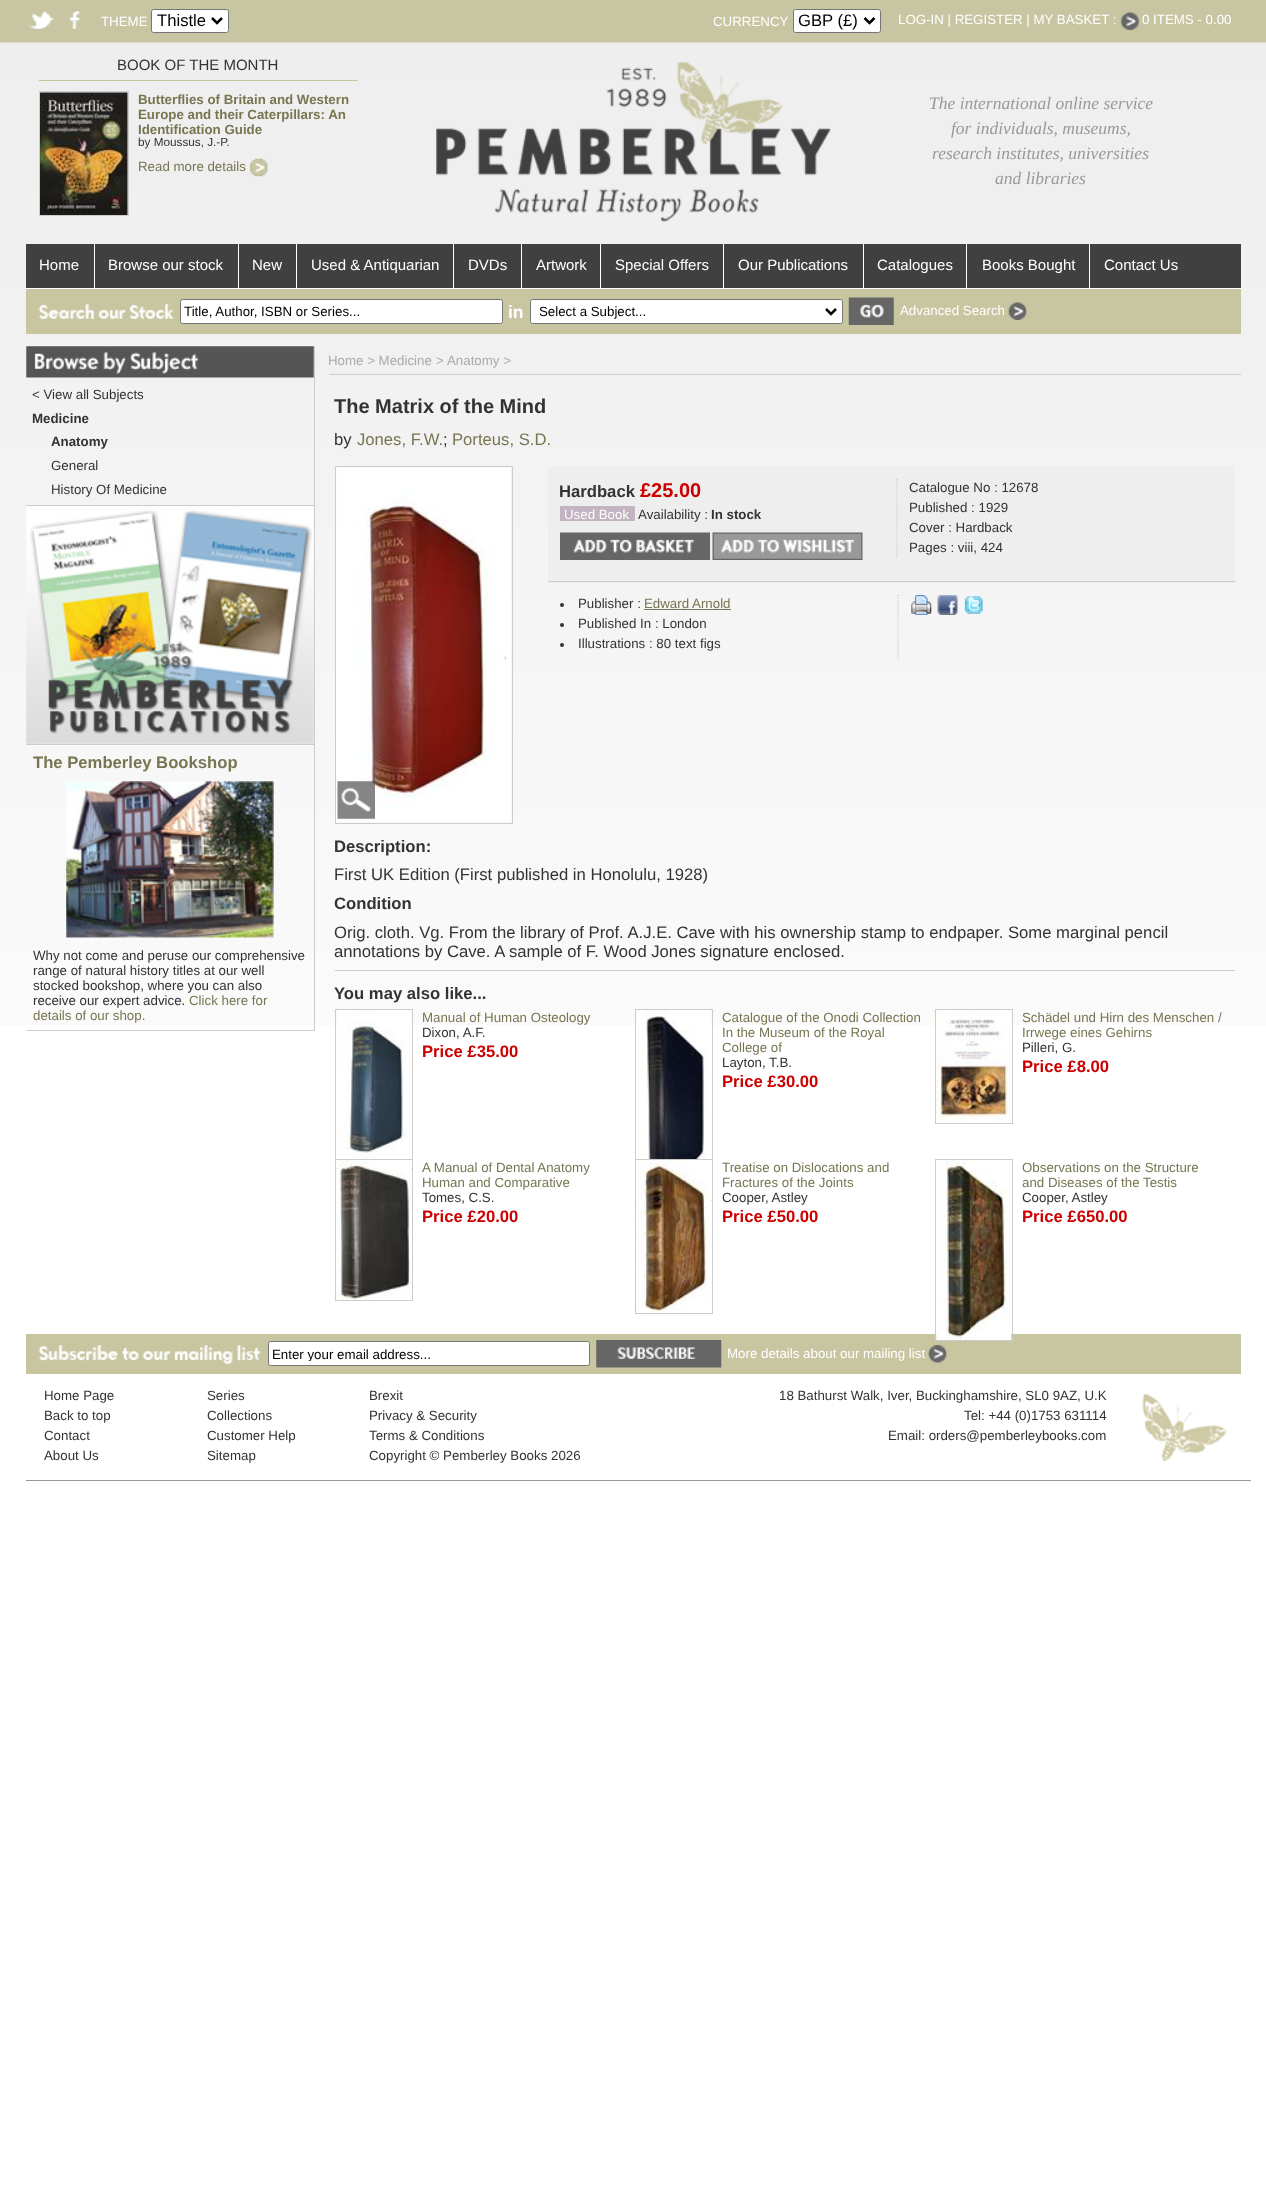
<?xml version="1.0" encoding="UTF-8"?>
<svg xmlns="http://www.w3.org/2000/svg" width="1266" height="2207">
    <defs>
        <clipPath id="clip1"><rect x="273" y="1346" width="312" height="15"/></clipPath>
    </defs>
    <rect width="100%" height="100%" fill="#FFFFFF"/>
    <image x="0" y="0" width="1266" height="1025" href="img_01.png"/>
    <image x="27" y="10" width="27" height="20" href="img_02.png"/>
    <image x="69" y="10" width="11" height="20" href="img_03.png"/>
    <text x="101" y="26" font-family="Liberation Sans" font-size="13.3" fill="#FFFFFF">THEME</text>
    <rect x="151.5" y="9.5" width="77" height="23" rx="2" fill="#FFFFFF" stroke="#767676"/>
    <path d="M 212 18 L 217 23 L 222 18" fill="none" stroke="#000000" stroke-width="2.5"/>
    <text x="157" y="26" font-family="Liberation Sans" font-size="16.67" fill="#000000">Thistle</text>
    <text x="713" y="26" font-family="Liberation Sans" font-size="13.3" fill="#FFFFFF">CURRENCY</text>
    <rect x="793.5" y="9.5" width="87" height="23" rx="2" fill="#FFFFFF" stroke="#767676"/>
    <path d="M 864.5 18 L 869.5 23 L 874.5 18" fill="none" stroke="#000000" stroke-width="2.5"/>
    <text x="798" y="26" font-family="Liberation Sans" font-size="16.67" fill="#000000">GBP (£)</text>
    <text x="898" y="24" font-family="Liberation Sans" font-size="13.3" fill="#FFFFFF">LOG-IN | REGISTER | MY BASKET :</text>
    <image x="1121" y="12" width="18" height="18" href="img_04.png"/>
    <text x="1142" y="24" font-family="Liberation Sans" font-size="13.3" fill="#FFFFFF">0 ITEMS - 0.00</text>
    <rect x="39" y="80" width="319" height="1" fill="#C8C5A1"/>
    <text x="117" y="70" font-family="Liberation Sans" font-size="15" fill="#333333">BOOK OF THE MONTH</text>
    <rect x="39.5" y="91.5" width="89" height="124" fill="none" stroke="#CCCCCC"/>
    <image x="40" y="92" width="88" height="123" href="img_05.png"/>
    <text font-family="Liberation Sans" font-size="13.3" font-weight="700" fill="#787551">
        <tspan x="138" y="104">Butterflies of Britain and Western</tspan>
        <tspan x="138" y="119">Europe and their Caterpillars: An</tspan>
        <tspan x="138" y="134">Identification Guide</tspan>
    </text>
    <text x="138" y="146" font-family="Liberation Sans" font-size="11.75" fill="#333333">by Moussus, J.-P.</text>
    <text x="138" y="171" font-family="Liberation Sans" font-size="13.3" fill="#787551">Read more details</text>
    <image x="250" y="158" width="18" height="19" href="img_06.png"/>
    <image x="436" y="62" width="395" height="160" href="img_07.png"/>
    <text x="929" y="109" font-family="Liberation Serif" font-size="17.5" font-style="italic" fill="#999999">The international online service</text>
    <text x="951" y="134" font-family="Liberation Serif" font-size="17.5" font-style="italic" fill="#999999">for individuals, museums,</text>
    <text x="932" y="159" font-family="Liberation Serif" font-size="17.5" font-style="italic" fill="#999999">research institutes, universities</text>
    <text x="995" y="184" font-family="Liberation Serif" font-size="17.5" font-style="italic" fill="#999999">and libraries</text>
    <rect x="26" y="244" width="1215" height="44" fill="#404040"/>
    <rect x="94" y="244" width="1" height="44" fill="#FFFFFF"/>
    <text x="39" y="270" font-family="Liberation Sans" font-size="15" fill="#FFFFFF">Home</text>
    <rect x="238" y="244" width="1" height="44" fill="#FFFFFF"/>
    <text x="108" y="270" font-family="Liberation Sans" font-size="15" fill="#FFFFFF">Browse our stock</text>
    <rect x="296" y="244" width="1" height="44" fill="#FFFFFF"/>
    <text x="252" y="270" font-family="Liberation Sans" font-size="15" fill="#FFFFFF">New</text>
    <rect x="453" y="244" width="1" height="44" fill="#FFFFFF"/>
    <text x="311" y="270" font-family="Liberation Sans" font-size="15" fill="#FFFFFF">Used &amp; Antiquarian</text>
    <rect x="521" y="244" width="1" height="44" fill="#FFFFFF"/>
    <text x="468" y="270" font-family="Liberation Sans" font-size="15" fill="#FFFFFF">DVDs</text>
    <rect x="600" y="244" width="1" height="44" fill="#FFFFFF"/>
    <text x="536" y="270" font-family="Liberation Sans" font-size="15" fill="#FFFFFF">Artwork</text>
    <rect x="723" y="244" width="1" height="44" fill="#FFFFFF"/>
    <text x="615" y="270" font-family="Liberation Sans" font-size="15" fill="#FFFFFF">Special Offers</text>
    <rect x="863" y="244" width="1" height="44" fill="#FFFFFF"/>
    <text x="738" y="270" font-family="Liberation Sans" font-size="15" fill="#FFFFFF">Our Publications</text>
    <rect x="966" y="244" width="1" height="44" fill="#FFFFFF"/>
    <text x="877" y="270" font-family="Liberation Sans" font-size="15" fill="#FFFFFF">Catalogues</text>
    <rect x="1089" y="244" width="1" height="44" fill="#FFFFFF"/>
    <text x="982" y="270" font-family="Liberation Sans" font-size="15" fill="#FFFFFF">Books Bought</text>
    <text x="1104" y="270" font-family="Liberation Sans" font-size="15" fill="#FFFFFF">Contact Us</text>
    <rect x="26" y="289" width="1215" height="45" fill="#C8C5A1"/>
    <rect x="26" y="288" width="1215" height="1" fill="#FFFFFF"/>
    <image x="38" y="303" width="136" height="16" href="img_08.png"/>
    <rect x="180.5" y="299.5" width="322" height="24" rx="2" fill="#FFFFFF" stroke="#767676"/>
    <text x="184" y="316" font-family="Liberation Sans" font-size="13.3" fill="#000000">Title, Author, ISBN or Series...</text>
    <text x="508" y="318" font-family="Liberation Sans" font-size="17.5" font-weight="700" fill="#FFFFFF">in</text>
    <rect x="530.5" y="299.5" width="312" height="24" rx="2" fill="#FFFFFF" stroke="#767676"/>
    <path d="M 826 309 L 831 314 L 836 309" fill="none" stroke="#000000" stroke-width="2.5"/>
    <text x="539" y="316" font-family="Liberation Sans" font-size="13.3" fill="#000000">Select a Subject...</text>
    <image x="848" y="297" width="46" height="28" href="img_09.png"/>
    <text x="900" y="315" font-family="Liberation Sans" font-size="13.3" fill="#FFFFFF">Advanced Search</text>
    <image x="1008" y="302" width="19" height="18" href="img_10.png"/>
    <rect x="314" y="346" width="1" height="685" fill="#CCCCCC"/>
    <image x="26" y="346" width="288" height="32" href="img_11.png"/>
    <text x="32" y="399" font-family="Liberation Sans" font-size="13.3" fill="#333333">&lt; View all Subjects</text>
    <text x="32" y="423" font-family="Liberation Sans" font-size="13.3" font-weight="700" fill="#333333">Medicine</text>
    <text x="51" y="446" font-family="Liberation Sans" font-size="13.3" font-weight="700" fill="#333333">Anatomy</text>
    <text font-family="Liberation Sans" font-size="13.3" fill="#333333">
        <tspan x="51" y="470">General</tspan>
        <tspan x="51" y="494">History Of Medicine</tspan>
    </text>
    <rect x="26" y="505" width="288" height="1" fill="#CCCCCC"/>
    <rect x="26" y="744" width="288" height="1" fill="#CCCCCC"/>
    <image x="26" y="506" width="288" height="238" href="img_12.png"/>
    <rect x="26" y="1030" width="288" height="1" fill="#CCCCCC"/>
    <text x="33" y="768" font-family="Liberation Sans" font-size="16.67" font-weight="700" fill="#787551">The Pemberley Bookshop</text>
    <image x="66" y="781" width="208" height="157" href="img_13.png"/>
    <text font-family="Liberation Sans" font-size="13.3" fill="#333333">
        <tspan x="33" y="960">Why not come and peruse our comprehensive</tspan>
        <tspan x="33" y="975">range of natural history titles at our well</tspan>
        <tspan x="33" y="990">stocked bookshop, where you can also</tspan>
        <tspan x="33" y="1005">receive our expert advice.</tspan>
    </text>
    <text x="189" y="1005" font-family="Liberation Sans" font-size="13.3" fill="#787551">Click here for</text>
    <text x="33" y="1020" font-family="Liberation Sans" font-size="13.3" fill="#787551">details of our shop.</text>
    <rect x="329" y="374" width="912" height="1" fill="#CCCCCC"/>
    <text x="328" y="365" font-family="Liberation Sans" font-size="13.3" fill="#AAAAAA">Home &gt; Medicine</text>
    <text x="436" y="365" font-family="Liberation Sans" font-size="13.3" fill="#AAAAAA">&gt;</text>
    <text x="447" y="365" font-family="Liberation Sans" font-size="13.3" fill="#AAAAAA">Anatomy &gt;</text>
    <text x="334" y="413" font-family="Liberation Sans" font-size="20" font-weight="700" fill="#333333">The Matrix of the Mind</text>
    <text x="334" y="445" font-family="Liberation Sans" font-size="16.67" fill="#333333">by</text>
    <text x="357" y="445" font-family="Liberation Sans" font-size="16.67" fill="#787551">Jones, F.W.</text>
    <text x="443" y="445" font-family="Liberation Sans" font-size="16.67" fill="#333333">;</text>
    <text x="452" y="445" font-family="Liberation Sans" font-size="16.67" fill="#787551">Porteus, S.D.</text>
    <rect x="335.5" y="466.5" width="177" height="357" fill="none" stroke="#CCCCCC"/>
    <image x="336" y="467" width="175" height="355" href="img_14.png"/>
    <image x="337" y="781" width="38" height="38" href="img_15.png"/>
    <rect x="548" y="466" width="687" height="117" fill="#EEEEEE"/>
    <rect x="548" y="581" width="687" height="1" fill="#CCCCCC"/>
    <text x="559" y="497" font-family="Liberation Sans" font-size="16.67" font-weight="700" fill="#333333">Hardback</text>
    <text x="640" y="497" font-family="Liberation Sans" font-size="20" font-weight="700" fill="#CC0000">£25.00</text>
    <rect x="560" y="506" width="75" height="15" fill="#C2B4C0"/>
    <text x="564" y="519" font-family="Liberation Sans" font-size="13.3" fill="#FFFFFF">Used Book</text>
    <text x="638" y="519" font-family="Liberation Sans" font-size="13.3" fill="#333333">Availability :</text>
    <text x="711" y="519" font-family="Liberation Sans" font-size="13.3" font-weight="700" fill="#333333">In stock</text>
    <image x="560" y="532" width="150" height="28" href="img_16.png"/>
    <image x="712" y="532" width="151" height="28" href="img_17.png"/>
    <path d="M 897 479 V 559" fill="none" stroke="#CCCCCC" stroke-width="1.2" stroke-dasharray="1.25 1.25"/>
    <text font-family="Liberation Sans" font-size="13.3" fill="#333333">
        <tspan x="909" y="492">Catalogue No : 12678</tspan>
        <tspan x="909" y="512">Published : 1929</tspan>
        <tspan x="909" y="532">Cover : Hardback</tspan>
        <tspan x="909" y="552">Pages : viii, 424</tspan>
    </text>
    <path d="M 898 595 V 660" fill="none" stroke="#CCCCCC" stroke-width="1.2" stroke-dasharray="1.25 1.25"/>
    <circle cx="562" cy="605" r="2" fill="#333333"/>
    <text x="578" y="608" font-family="Liberation Sans" font-size="13.3" fill="#333333">Publisher :</text>
    <text x="644" y="608" font-family="Liberation Sans" font-size="13.3" fill="#787551">Edward Arnold</text>
    <rect x="644" y="609" width="87" height="1" fill="#787551"/>
    <circle cx="562" cy="625" r="2" fill="#333333"/>
    <text x="578" y="628" font-family="Liberation Sans" font-size="13.3" fill="#333333">Published In : London</text>
    <circle cx="562" cy="645" r="2" fill="#333333"/>
    <text x="578" y="648" font-family="Liberation Sans" font-size="13.3" fill="#333333">Illustrations : 80 text figs</text>
    <image x="911" y="595" width="21" height="20" href="img_18.png"/>
    <image x="937" y="595" width="21" height="20" href="img_19.png"/>
    <image x="964" y="596" width="19" height="18" href="img_20.png"/>
    <text x="334" y="852" font-family="Liberation Sans" font-size="16.67" font-weight="700" fill="#333333">Description:</text>
    <text x="334" y="880" font-family="Liberation Sans" font-size="16.67" fill="#333333">First UK Edition (First published in Honolulu, 1928)</text>
    <text x="334" y="909" font-family="Liberation Sans" font-size="16.67" font-weight="700" fill="#333333">Condition</text>
    <text font-family="Liberation Sans" font-size="16.67" fill="#333333">
        <tspan x="334" y="938">Orig. cloth. Vg. From the library of Prof. A.J.E. Cave with his ownership stamp to endpaper. Some marginal pencil</tspan>
        <tspan x="334" y="957">annotations by Cave. A sample of F. Wood Jones signature enclosed.</tspan>
    </text>
    <rect x="335" y="970" width="900" height="1" fill="#CCCCCC"/>
    <text x="334" y="999" font-family="Liberation Sans" font-size="16.67" font-weight="700" fill="#333333">You may also like...</text>
    <rect x="335.5" y="1009.5" width="77" height="159" fill="none" stroke="#CCCCCC"/>
    <image x="337" y="1010" width="74" height="149" href="img_21.png"/>
    <text x="422" y="1022" font-family="Liberation Sans" font-size="13.3" fill="#787551">Manual of Human Osteology</text>
    <text x="422" y="1037" font-family="Liberation Sans" font-size="13.3" fill="#333333">Dixon, A.F.</text>
    <text x="422" y="1057" font-family="Liberation Sans" font-size="16.67" font-weight="700" fill="#CC0000">Price £35.00</text>
    <rect x="635.5" y="1009.5" width="77" height="191" fill="none" stroke="#CCCCCC"/>
    <image x="637" y="1010" width="74" height="149" href="img_22.png"/>
    <text font-family="Liberation Sans" font-size="13.3" fill="#787551">
        <tspan x="722" y="1022">Catalogue of the Onodi Collection</tspan>
        <tspan x="722" y="1037">In the Museum of the Royal</tspan>
        <tspan x="722" y="1052">College of</tspan>
    </text>
    <text x="722" y="1067" font-family="Liberation Sans" font-size="13.3" fill="#333333">Layton, T.B.</text>
    <text x="722" y="1087" font-family="Liberation Sans" font-size="16.67" font-weight="700" fill="#CC0000">Price £30.00</text>
    <rect x="935.5" y="1009.5" width="77" height="114" fill="none" stroke="#CCCCCC"/>
    <image x="936" y="1010" width="75" height="113" href="img_23.png"/>
    <text font-family="Liberation Sans" font-size="13.3" fill="#787551">
        <tspan x="1022" y="1022">Schädel und Hirn des Menschen /</tspan>
        <tspan x="1022" y="1037">Irrwege eines Gehirns</tspan>
    </text>
    <text x="1022" y="1052" font-family="Liberation Sans" font-size="13.3" fill="#333333">Pilleri, G.</text>
    <text x="1022" y="1072" font-family="Liberation Sans" font-size="16.67" font-weight="700" fill="#CC0000">Price £8.00</text>
    <rect x="335.5" y="1159.5" width="77" height="141" fill="none" stroke="#CCCCCC"/>
    <image x="336" y="1160" width="76" height="140" href="img_24.png"/>
    <text font-family="Liberation Sans" font-size="13.3" fill="#787551">
        <tspan x="422" y="1172">A Manual of Dental Anatomy</tspan>
        <tspan x="422" y="1187">Human and Comparative</tspan>
    </text>
    <text x="422" y="1202" font-family="Liberation Sans" font-size="13.3" fill="#333333">Tomes, C.S.</text>
    <text x="422" y="1222" font-family="Liberation Sans" font-size="16.67" font-weight="700" fill="#CC0000">Price £20.00</text>
    <rect x="635.5" y="1159.5" width="77" height="154" fill="none" stroke="#CCCCCC"/>
    <image x="636" y="1160" width="76" height="153" href="img_25.png"/>
    <text font-family="Liberation Sans" font-size="13.3" fill="#787551">
        <tspan x="722" y="1172">Treatise on Dislocations and</tspan>
        <tspan x="722" y="1187">Fractures of the Joints</tspan>
    </text>
    <text x="722" y="1202" font-family="Liberation Sans" font-size="13.3" fill="#333333">Cooper, Astley</text>
    <text x="722" y="1222" font-family="Liberation Sans" font-size="16.67" font-weight="700" fill="#CC0000">Price £50.00</text>
    <rect x="26" y="1334" width="1215" height="40" fill="#C8C5A1"/>
    <rect x="935.5" y="1159.5" width="77" height="181" fill="none" stroke="#CCCCCC"/>
    <image x="936" y="1160" width="76" height="180" href="img_26.png"/>
    <text font-family="Liberation Sans" font-size="13.3" fill="#787551">
        <tspan x="1022" y="1172">Observations on the Structure</tspan>
        <tspan x="1022" y="1187">and Diseases of the Testis</tspan>
    </text>
    <text x="1022" y="1202" font-family="Liberation Sans" font-size="13.3" fill="#333333">Cooper, Astley</text>
    <text x="1022" y="1222" font-family="Liberation Sans" font-size="16.67" font-weight="700" fill="#CC0000">Price £650.00</text>
    <image x="38" y="1345" width="223" height="19" href="img_27.png"/>
    <rect x="268.5" y="1341.5" width="321" height="24" rx="2" fill="#FFFFFF" stroke="#767676"/>
    <g clip-path="url(#clip1)">
        <text x="272" y="1359" font-family="Liberation Sans" font-size="13.3" fill="#000000">Enter your email address...</text>
    </g>
    <image x="596" y="1340" width="126" height="28" href="img_28.png"/>
    <text x="727" y="1358" font-family="Liberation Sans" font-size="13.3" fill="#FFFFFF">More details about our mailing list</text>
    <image x="928" y="1345" width="19" height="18" href="img_29.png"/>
    <image x="1142" y="1393" width="85" height="69" href="img_30.png"/>
    <rect x="26" y="1480" width="1225" height="1" fill="#999999"/>
    <text font-family="Liberation Sans" font-size="13.3" fill="#333333">
        <tspan x="44" y="1400">Home Page</tspan>
        <tspan x="44" y="1420">Back to top</tspan>
        <tspan x="44" y="1440">Contact</tspan>
        <tspan x="44" y="1460">About Us</tspan>
    </text>
    <text font-family="Liberation Sans" font-size="13.3" fill="#333333">
        <tspan x="207" y="1400">Series</tspan>
        <tspan x="207" y="1420">Collections</tspan>
        <tspan x="207" y="1440">Customer Help</tspan>
        <tspan x="207" y="1460">Sitemap</tspan>
    </text>
    <text font-family="Liberation Sans" font-size="13.3" fill="#333333">
        <tspan x="369" y="1400">Brexit</tspan>
        <tspan x="369" y="1420">Privacy &amp; Security</tspan>
        <tspan x="369" y="1440">Terms &amp; Conditions</tspan>
        <tspan x="369" y="1460">Copyright © Pemberley Books 2026</tspan>
    </text>
    <text x="779" y="1400" font-family="Liberation Sans" font-size="13.3" fill="#333333">18 Bathurst Walk, Iver, Buckinghamshire, SL0 9AZ, U.K</text>
    <text x="964" y="1420" font-family="Liberation Sans" font-size="13.3" fill="#333333">Tel: +44 (0)1753 631114</text>
    <text x="888" y="1440" font-family="Liberation Sans" font-size="13.3" fill="#333333">Email: orders@pemberleybooks.com</text>
</svg>
